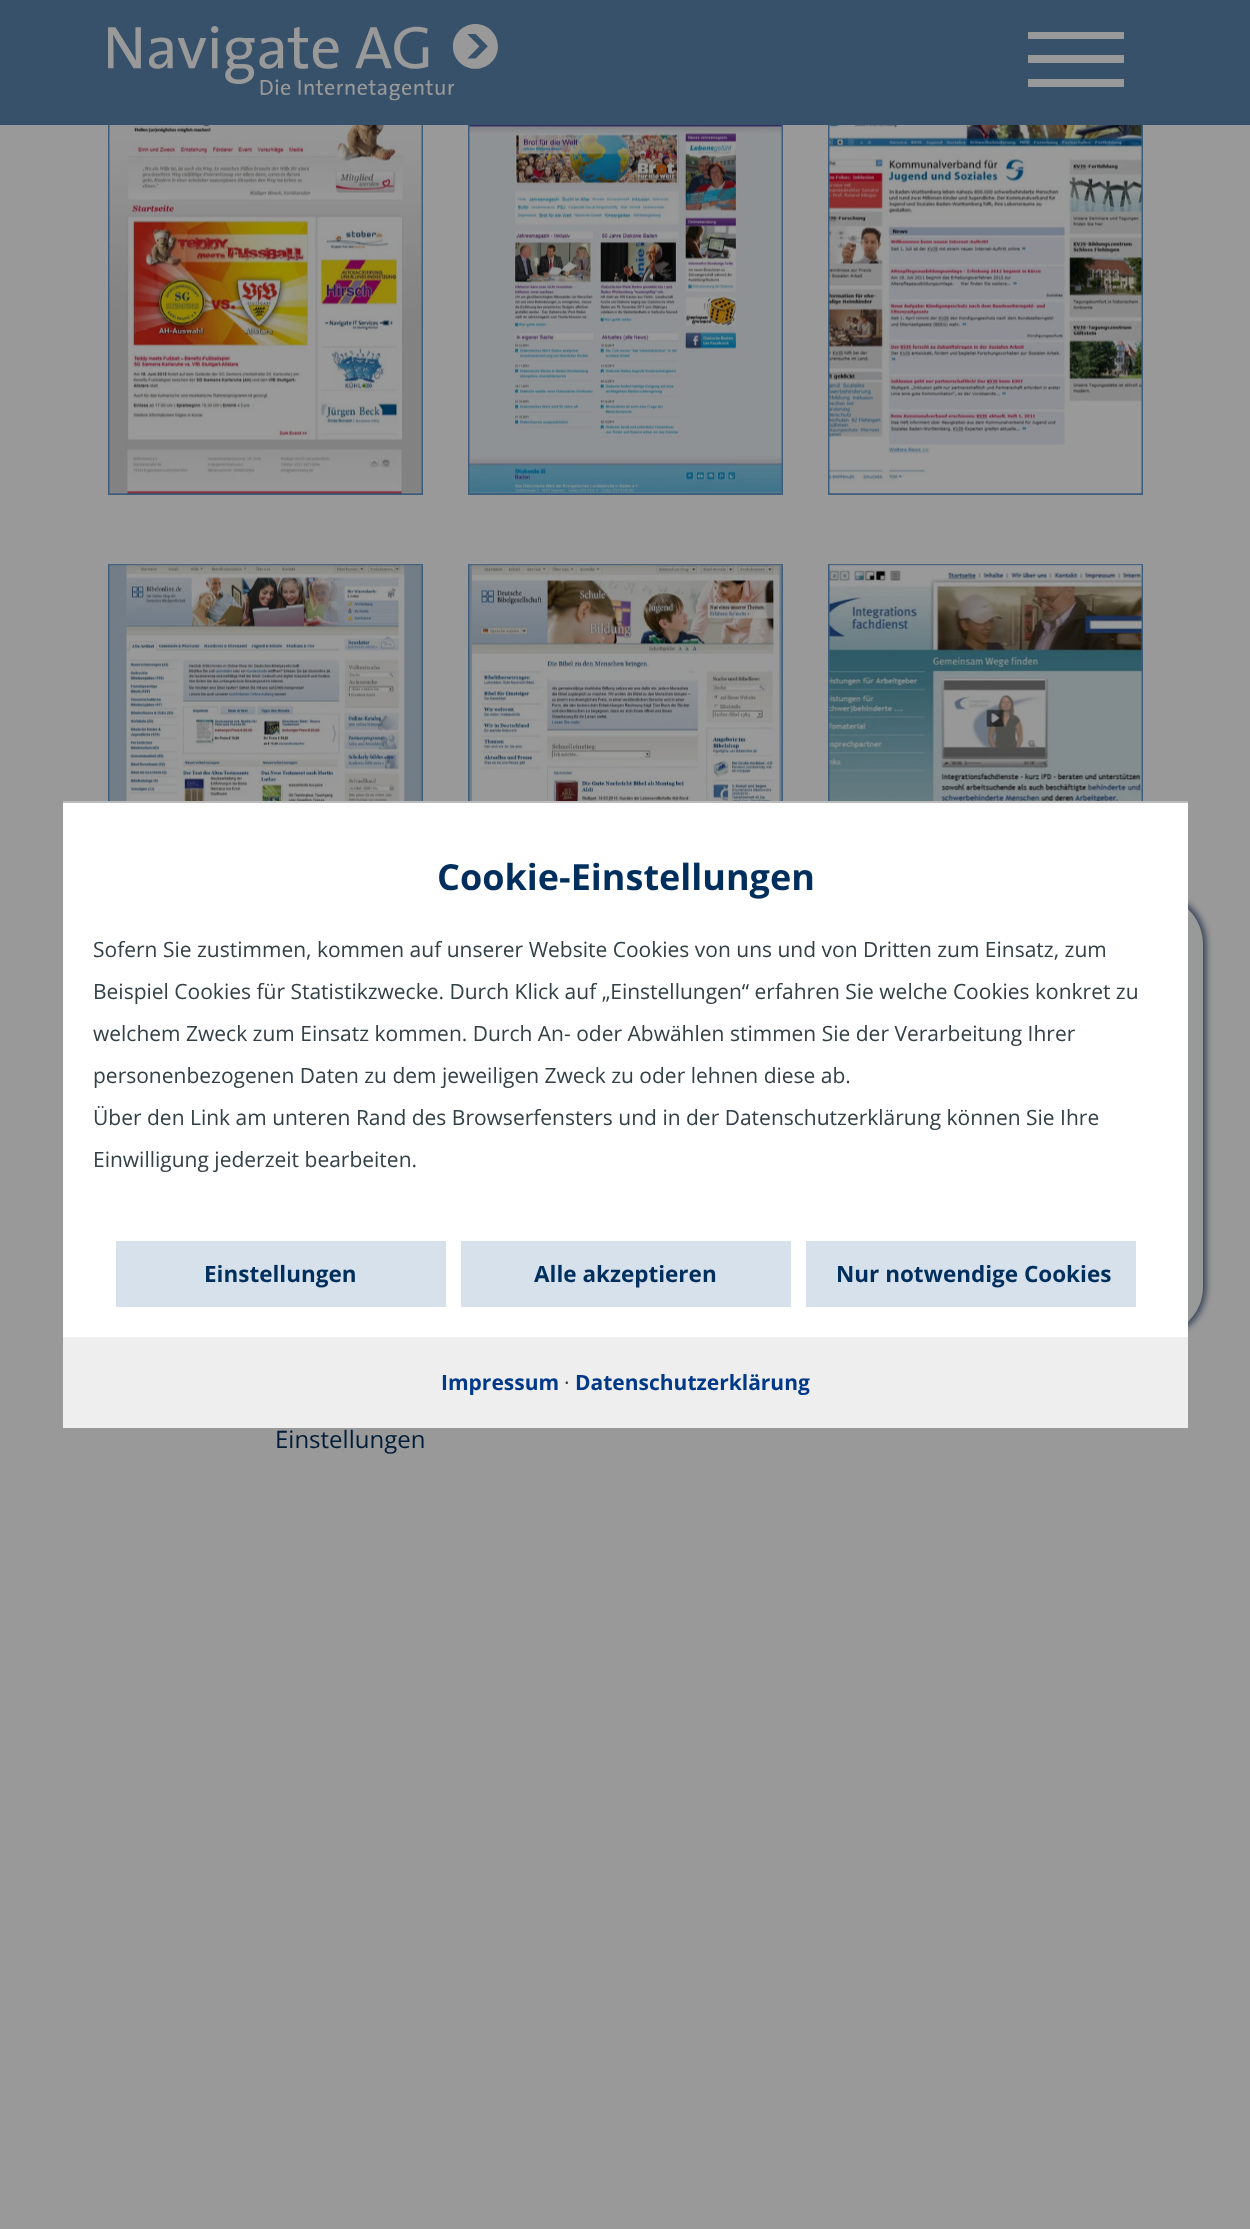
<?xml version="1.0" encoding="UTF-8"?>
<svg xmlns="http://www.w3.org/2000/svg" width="1250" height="2229">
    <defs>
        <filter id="blur1" x="-50%" y="-200%" width="200%" height="500%"><feGaussianBlur stdDeviation="3"/></filter>
    </defs>
    <rect width="100%" height="100%" fill="#999999"/>
    <rect x="109" y="76" width="313" height="418" fill="none" stroke="#3D5D7C" stroke-width="2"/>
    <rect x="469" y="76" width="313" height="418" fill="none" stroke="#3D5D7C" stroke-width="2"/>
    <rect x="829" y="76" width="313" height="418" fill="none" stroke="#3D5D7C" stroke-width="2"/>
    <rect x="0" y="0" width="1250" height="125" fill="#37516A"/>
    <image x="108" y="24" width="390" height="77" href="img_01.png"/>
    <rect x="1028" y="32" width="96" height="7" fill="#999999"/>
    <rect x="1028" y="55" width="96" height="8" fill="#999999"/>
    <rect x="1028" y="79" width="96" height="8" fill="#999999"/>
    <image x="109" y="125" width="313" height="369" href="img_02.png"/>
    <image x="469" y="125" width="313" height="369" href="img_03.png"/>
    <image x="829" y="125" width="313" height="369" href="img_04.png"/>
    <rect x="109" y="565" width="313" height="418" fill="none" stroke="#3D5D7C" stroke-width="2"/>
    <image x="109" y="564" width="313" height="237" href="img_05.png"/>
    <rect x="469" y="565" width="313" height="418" fill="none" stroke="#3D5D7C" stroke-width="2"/>
    <image x="469" y="564" width="313" height="237" href="img_06.png"/>
    <rect x="829" y="565" width="313" height="418" fill="none" stroke="#3D5D7C" stroke-width="2"/>
    <image x="829" y="564" width="313" height="237" href="img_07.png"/>
    <rect x="1097" y="893" width="109" height="445" rx="51" fill="#0D213A" fill-opacity="0.75" filter="url(#blur1)"/>
    <rect x="1100" y="896" width="103" height="439" rx="48" fill="#989999"/>
    <rect x="63" y="803" width="1125" height="534" fill="#FFFFFF"/>
    <rect x="63" y="801" width="1125" height="2" fill="#BBBBBB"/>
    <text x="437" y="890" font-family="Open Sans" font-size="36" font-weight="700" fill="#002F5D">Cookie-Einstellungen</text>
    <text x="93" y="957" font-family="Open Sans" font-size="21" fill="#334046">Sofern Sie zustimmen, kommen auf unserer Website Cookies von uns und von Dritten zum Einsatz, zum</text>
    <text x="93" y="999" font-family="Open Sans" font-size="21" fill="#334046">Beispiel Cookies für Statistikzwecke. Durch Klick auf „Einstellungen“ erfahren Sie welche Cookies konkret zu</text>
    <text x="93" y="1041" font-family="Open Sans" font-size="21" fill="#334046">welchem Zweck zum Einsatz kommen. Durch An- oder Abwählen stimmen Sie der Verarbeitung Ihrer</text>
    <text x="93" y="1083" font-family="Open Sans" font-size="21" fill="#334046">personenbezogenen Daten zu dem jeweiligen Zweck zu oder lehnen diese ab.</text>
    <text x="93" y="1125" font-family="Open Sans" font-size="21" fill="#334046">Über den Link am unteren Rand des Browserfensters und in der Datenschutzerklärung können Sie Ihre</text>
    <text x="93" y="1167" font-family="Open Sans" font-size="21" fill="#334046">Einwilligung jederzeit bearbeiten.</text>
    <rect x="116" y="1241" width="330" height="66" fill="#D6E1EB"/>
    <text x="204" y="1282" font-family="Open Sans" font-size="22.5" font-weight="700" fill="#002F5D">Einstellungen</text>
    <rect x="461" y="1241" width="330" height="66" fill="#D6E1EB"/>
    <text x="534" y="1282" font-family="Open Sans" font-size="22.5" font-weight="700" fill="#002F5D">Alle akzeptieren</text>
    <rect x="806" y="1241" width="330" height="66" fill="#D6E1EB"/>
    <text x="836" y="1282" font-family="Open Sans" font-size="22.5" font-weight="700" fill="#002F5D">Nur notwendige Cookies</text>
    <rect x="63" y="1337" width="1125" height="91" fill="#EEEEEE"/>
    <text x="441" y="1390" font-family="Open Sans" font-size="21" font-weight="700" fill="#00398A">Impressum</text>
    <text x="564" y="1390" font-family="Open Sans" font-size="21" fill="#334046">·</text>
    <text x="575" y="1390" font-family="Open Sans" font-size="21" font-weight="700" fill="#00398A">Datenschutzerklärung</text>
    <text x="275" y="1448" font-family="Open Sans" font-size="24" fill="#001C38">Einstellungen</text>
</svg>
